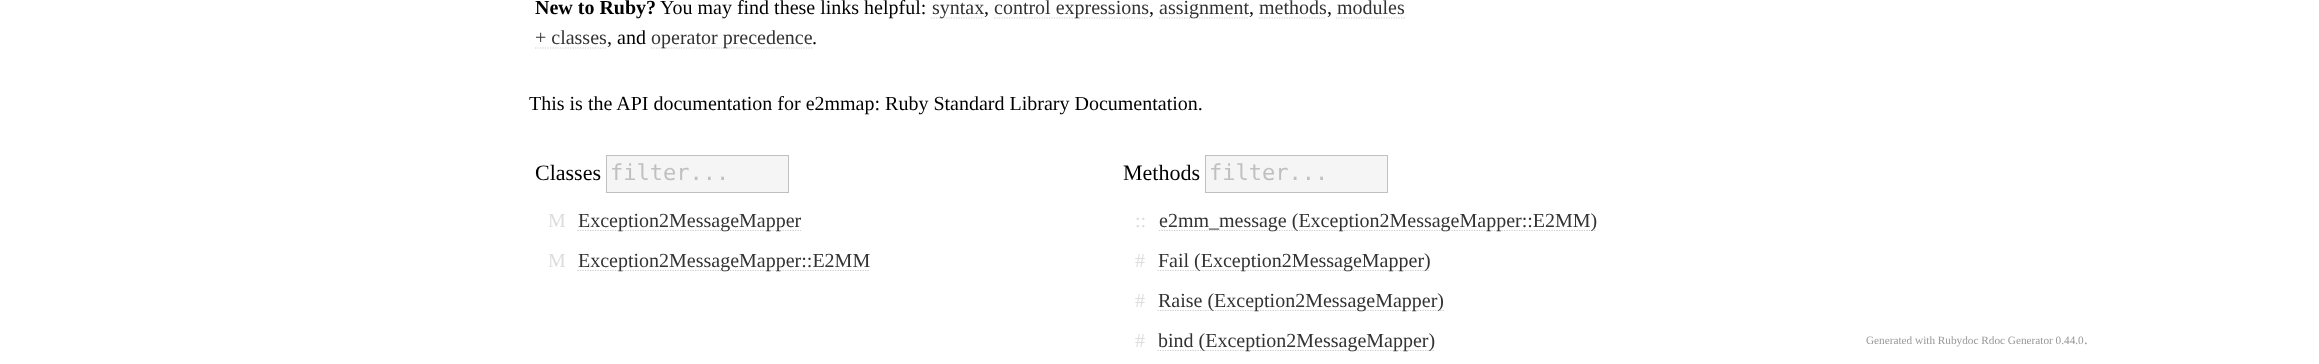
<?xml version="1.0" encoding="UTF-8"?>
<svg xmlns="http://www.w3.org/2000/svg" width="2319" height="364">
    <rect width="100%" height="100%" fill="#FFFFFF"/>
    <text x="535" y="14" font-family="Liberation Serif" font-size="20" font-weight="700" fill="#000000">New to Ruby?</text>
    <text x="660" y="14" font-family="Liberation Serif" font-size="20" fill="#000000">You may find these links helpful:</text>
    <path d="M 931 18 H 984" fill="none" stroke="#CDCDCD" stroke-width="1.2" stroke-dasharray="1.25 1.25"/>
    <text x="932" y="14" font-family="Liberation Serif" font-size="20" fill="#333333">syntax</text>
    <text x="984" y="14" font-family="Liberation Serif" font-size="20" fill="#000000">,</text>
    <path d="M 994 18 H 1149" fill="none" stroke="#CDCDCD" stroke-width="1.2" stroke-dasharray="1.25 1.25"/>
    <text x="994" y="14" font-family="Liberation Serif" font-size="20" fill="#333333">control expressions</text>
    <text x="1149" y="14" font-family="Liberation Serif" font-size="20" fill="#000000">,</text>
    <path d="M 1159 18 H 1249" fill="none" stroke="#CDCDCD" stroke-width="1.2" stroke-dasharray="1.25 1.25"/>
    <text x="1159" y="14" font-family="Liberation Serif" font-size="20" fill="#333333">assignment</text>
    <text x="1249" y="14" font-family="Liberation Serif" font-size="20" fill="#000000">,</text>
    <text x="1259" y="14" font-family="Liberation Serif" font-size="20" fill="#333333">methods</text>
    <path d="M 1259 18 H 1326" fill="none" stroke="#CDCDCD" stroke-width="1.2" stroke-dasharray="1.25 1.25"/>
    <text x="1327" y="14" font-family="Liberation Serif" font-size="20" fill="#000000">,</text>
    <text x="1337" y="14" font-family="Liberation Serif" font-size="20" fill="#333333">modules</text>
    <path d="M 1336 18 H 1405" fill="none" stroke="#CDCDCD" stroke-width="1.2" stroke-dasharray="1.25 1.25"/>
    <text x="535" y="44" font-family="Liberation Serif" font-size="20" fill="#333333">+ classes</text>
    <path d="M 535 48 H 606" fill="none" stroke="#CDCDCD" stroke-width="1.2" stroke-dasharray="1.25 1.25"/>
    <text x="607" y="44" font-family="Liberation Serif" font-size="20" fill="#000000">, and</text>
    <path d="M 651 48 H 812.5" fill="none" stroke="#CDCDCD" stroke-width="1.2" stroke-dasharray="1.25 1.25"/>
    <text x="651" y="44" font-family="Liberation Serif" font-size="20" fill="#333333">operator precedence</text>
    <text x="812" y="44" font-family="Liberation Serif" font-size="20" fill="#000000">.</text>
    <text x="529" y="110" font-family="Liberation Serif" font-size="20" fill="#000000">This is the API documentation for e2mmap: Ruby Standard Library Documentation.</text>
    <text x="535" y="180" font-family="Liberation Serif" font-size="22" fill="#000000">Classes</text>
    <rect x="606.5" y="155.5" width="182" height="37" fill="#F5F5F5" stroke="#C0C0C0"/>
    <text x="610" y="180" font-family="DejaVu Sans Mono" font-size="22" fill="#C0C0C0">filter...</text>
    <text x="548" y="227" font-family="Liberation Serif" font-size="20" fill="#DDDDDD">M</text>
    <path d="M 577.5 230.5 H 801" fill="none" stroke="#CDCDCD" stroke-width="1.2" stroke-dasharray="1.25 1.25"/>
    <text x="578" y="227" font-family="Liberation Serif" font-size="20" fill="#333333">Exception2MessageMapper</text>
    <text x="548" y="267" font-family="Liberation Serif" font-size="20" fill="#DDDDDD">M</text>
    <path d="M 577.5 270.5 H 870" fill="none" stroke="#CDCDCD" stroke-width="1.2" stroke-dasharray="1.25 1.25"/>
    <text x="578" y="267" font-family="Liberation Serif" font-size="20" fill="#333333">Exception2MessageMapper::E2MM</text>
    <text x="1123" y="180" font-family="Liberation Serif" font-size="22" fill="#000000">Methods</text>
    <rect x="1205.5" y="155.5" width="182" height="37" fill="#F5F5F5" stroke="#C0C0C0"/>
    <text x="1209" y="180" font-family="DejaVu Sans Mono" font-size="22" fill="#C0C0C0">filter...</text>
    <text x="1135" y="227" font-family="Liberation Serif" font-size="20" fill="#DDDDDD">::</text>
    <path d="M 1159 230.5 H 1596" fill="none" stroke="#CDCDCD" stroke-width="1.2" stroke-dasharray="1.25 1.25"/>
    <text x="1159" y="227" font-family="Liberation Serif" font-size="20" fill="#333333">e2mm_message (Exception2MessageMapper::E2MM)</text>
    <text x="1135" y="267" font-family="Liberation Serif" font-size="20" fill="#DDDDDD">#</text>
    <path d="M 1157.5 270.5 H 1430" fill="none" stroke="#CDCDCD" stroke-width="1.2" stroke-dasharray="1.25 1.25"/>
    <text x="1158" y="267" font-family="Liberation Serif" font-size="20" fill="#333333">Fail (Exception2MessageMapper)</text>
    <text x="1135" y="307" font-family="Liberation Serif" font-size="20" fill="#DDDDDD">#</text>
    <path d="M 1157.5 310.5 H 1444" fill="none" stroke="#CDCDCD" stroke-width="1.2" stroke-dasharray="1.25 1.25"/>
    <text x="1158" y="307" font-family="Liberation Serif" font-size="20" fill="#333333">Raise (Exception2MessageMapper)</text>
    <text x="1135" y="347" font-family="Liberation Serif" font-size="20" fill="#DDDDDD">#</text>
    <path d="M 1157.5 350.5 H 1435" fill="none" stroke="#CDCDCD" stroke-width="1.2" stroke-dasharray="1.25 1.25"/>
    <text x="1158" y="347" font-family="Liberation Serif" font-size="20" fill="#333333">bind (Exception2MessageMapper)</text>
    <text x="1866" y="344" font-family="Liberation Serif" font-size="11.25" fill="#999999">Generated with Rubydoc Rdoc Generator 0.44.0</text>
    <text x="2084" y="344" font-family="Liberation Serif" font-size="15" fill="#999999">.</text>
</svg>
